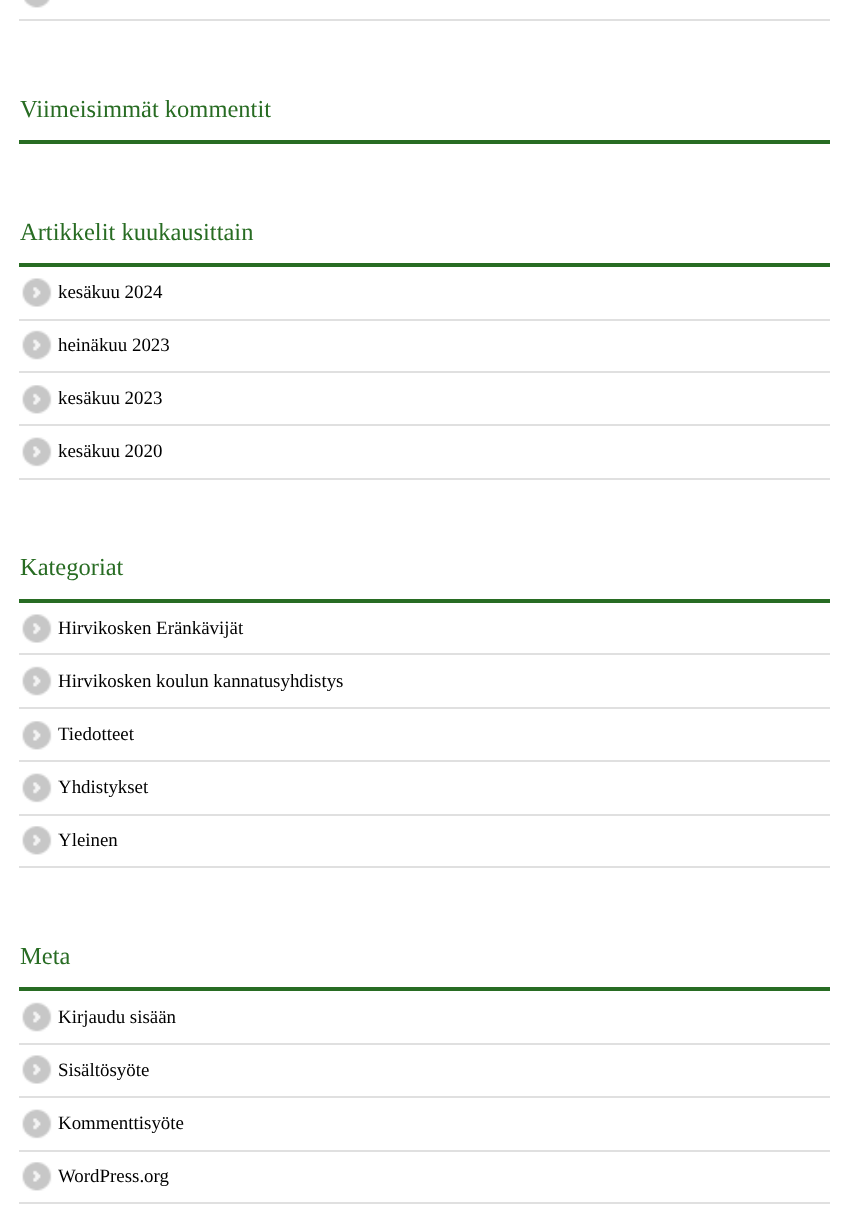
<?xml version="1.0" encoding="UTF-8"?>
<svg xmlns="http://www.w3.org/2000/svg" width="848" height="1229">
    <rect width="100%" height="100%" fill="#FFFFFF"/>
    <image x="24" y="0" width="26" height="8" href="img_01.png"/>
    <rect x="19" y="19" width="811" height="2" fill="#E0E0E0"/>
    <rect x="19" y="140" width="811" height="4" fill="#286C23"/>
    <text x="20" y="117" font-family="Liberation Serif" font-size="24.5" fill="#286C23">Viimeisimmät kommentit</text>
    <rect x="19" y="263" width="811" height="4" fill="#286C23"/>
    <text x="20" y="240" font-family="Liberation Serif" font-size="24.5" fill="#286C23">Artikkelit kuukausittain</text>
    <image x="22" y="278" width="30" height="29" href="img_02.png"/>
    <rect x="19" y="319" width="811" height="2" fill="#E0E0E0"/>
    <text x="58" y="298" font-family="Liberation Serif" font-size="18.9" fill="#000000">kesäkuu 2024</text>
    <image x="22" y="330" width="30" height="30" href="img_03.png"/>
    <rect x="19" y="371" width="811" height="2" fill="#E0E0E0"/>
    <text x="58" y="351" font-family="Liberation Serif" font-size="18.9" fill="#000000">heinäkuu 2023</text>
    <image x="22" y="385" width="30" height="29" href="img_04.png"/>
    <rect x="19" y="424" width="811" height="2" fill="#E0E0E0"/>
    <text x="58" y="404" font-family="Liberation Serif" font-size="18.9" fill="#000000">kesäkuu 2023</text>
    <image x="22" y="437" width="30" height="30" href="img_05.png"/>
    <rect x="19" y="478" width="811" height="2" fill="#E0E0E0"/>
    <text x="58" y="457" font-family="Liberation Serif" font-size="18.9" fill="#000000">kesäkuu 2020</text>
    <rect x="19" y="599" width="811" height="4" fill="#286C23"/>
    <text x="20" y="575" font-family="Liberation Serif" font-size="24.5" fill="#286C23">Kategoriat</text>
    <image x="22" y="614" width="30" height="29" href="img_02.png"/>
    <rect x="19" y="653" width="811" height="2" fill="#E0E0E0"/>
    <text x="58" y="634" font-family="Liberation Serif" font-size="18.9" fill="#000000">Hirvikosken Eränkävijät</text>
    <image x="22" y="666" width="30" height="30" href="img_03.png"/>
    <rect x="19" y="707" width="811" height="2" fill="#E0E0E0"/>
    <text x="58" y="687" font-family="Liberation Serif" font-size="18.9" fill="#000000">Hirvikosken koulun kannatusyhdistys</text>
    <image x="22" y="721" width="30" height="29" href="img_04.png"/>
    <rect x="19" y="760" width="811" height="2" fill="#E0E0E0"/>
    <text x="58" y="740" font-family="Liberation Serif" font-size="18.9" fill="#000000">Tiedotteet</text>
    <image x="22" y="773" width="30" height="30" href="img_05.png"/>
    <rect x="19" y="814" width="811" height="2" fill="#E0E0E0"/>
    <text x="58" y="793" font-family="Liberation Serif" font-size="18.9" fill="#000000">Yhdistykset</text>
    <image x="22" y="826" width="30" height="29" href="img_04.png"/>
    <rect x="19" y="866" width="811" height="2" fill="#E0E0E0"/>
    <text x="58" y="846" font-family="Liberation Serif" font-size="18.9" fill="#000000">Yleinen</text>
    <rect x="19" y="987" width="811" height="4" fill="#286C23"/>
    <text x="20" y="964" font-family="Liberation Serif" font-size="24.5" fill="#286C23">Meta</text>
    <image x="22" y="1002" width="30" height="30" href="img_03.png"/>
    <rect x="19" y="1043" width="811" height="2" fill="#E0E0E0"/>
    <text x="58" y="1023" font-family="Liberation Serif" font-size="18.9" fill="#000000">Kirjaudu sisään</text>
    <image x="22" y="1055" width="30" height="29" href="img_02.png"/>
    <rect x="19" y="1096" width="811" height="2" fill="#E0E0E0"/>
    <text x="58" y="1076" font-family="Liberation Serif" font-size="18.9" fill="#000000">Sisältösyöte</text>
    <image x="22" y="1109" width="30" height="30" href="img_05.png"/>
    <rect x="19" y="1150" width="811" height="2" fill="#E0E0E0"/>
    <text x="58" y="1129" font-family="Liberation Serif" font-size="18.9" fill="#000000">Kommenttisyöte</text>
    <image x="22" y="1162" width="30" height="29" href="img_04.png"/>
    <rect x="19" y="1202" width="811" height="2" fill="#E0E0E0"/>
    <text x="58" y="1182" font-family="Liberation Serif" font-size="18.9" fill="#000000">WordPress.org</text>
</svg>
